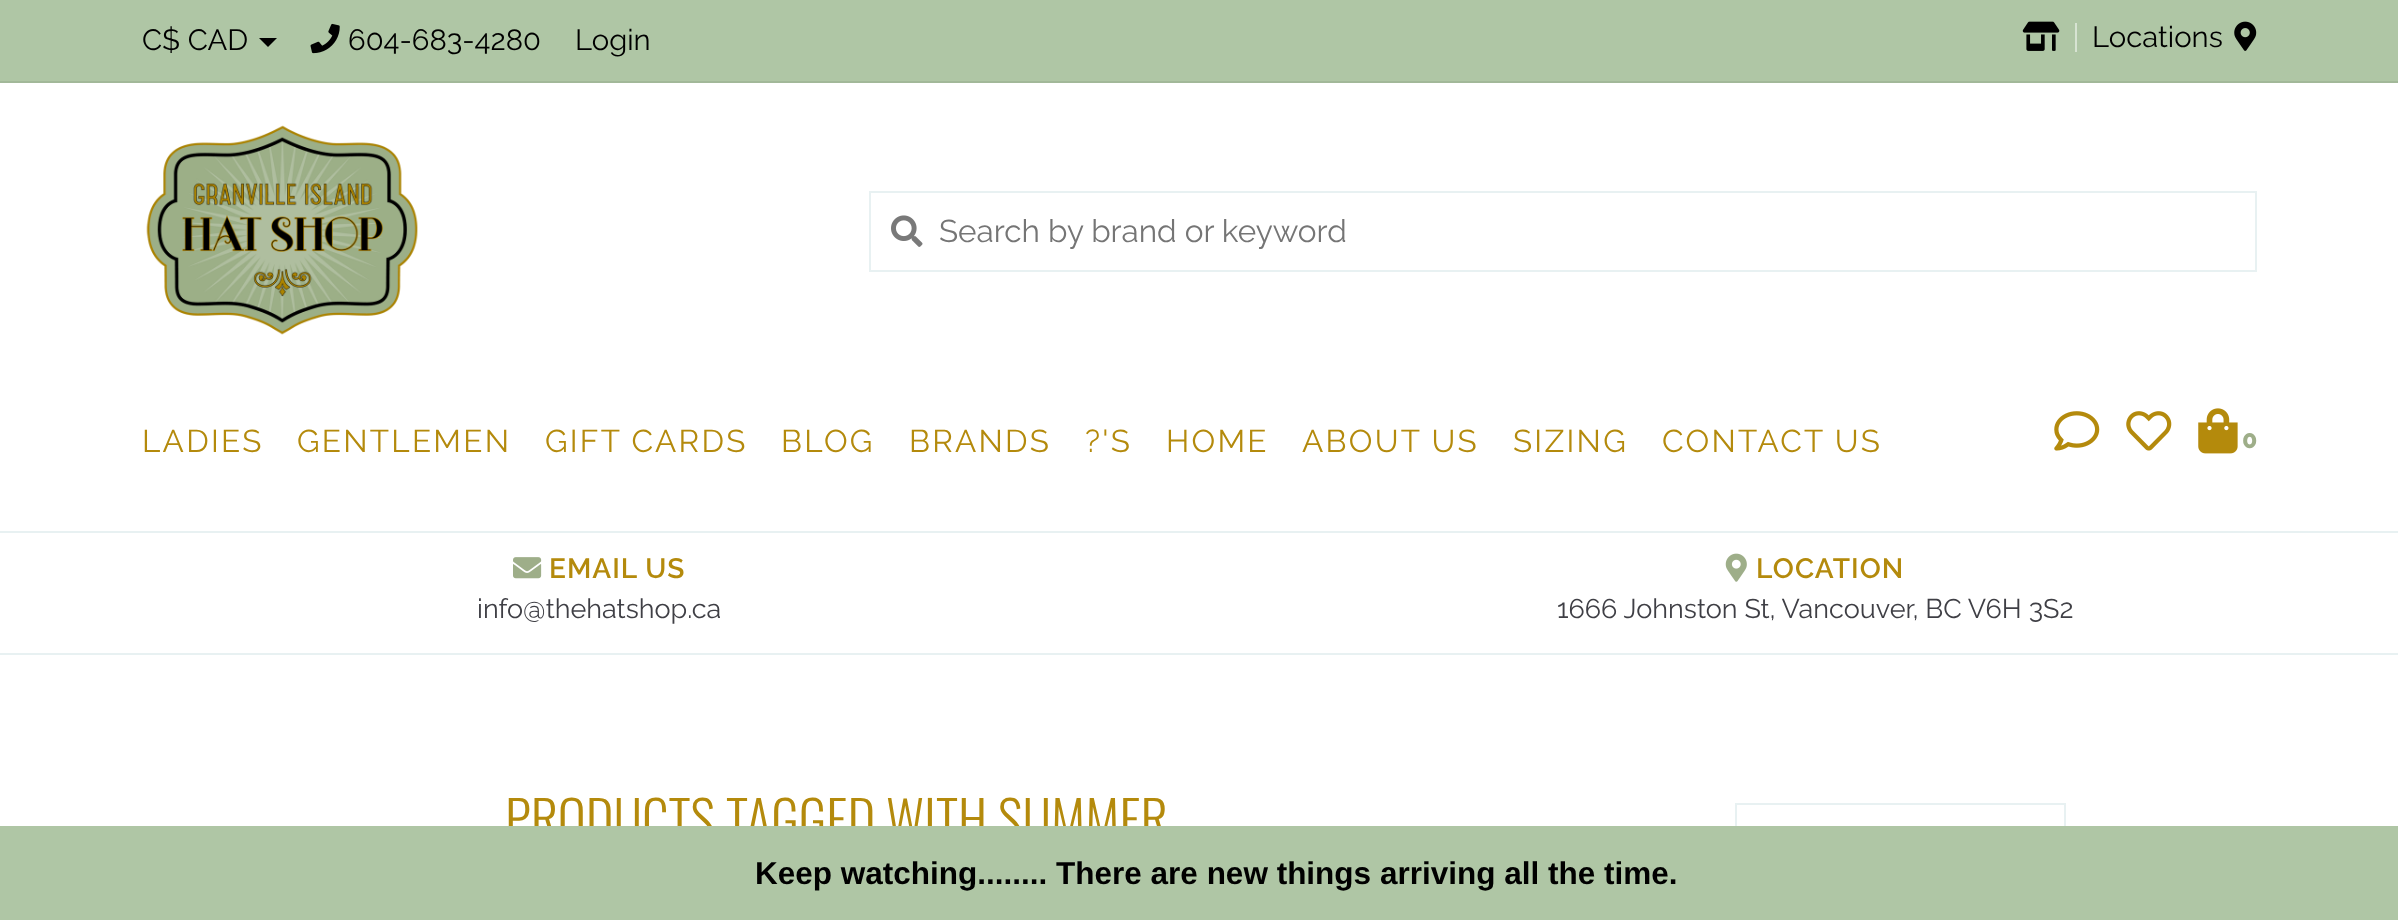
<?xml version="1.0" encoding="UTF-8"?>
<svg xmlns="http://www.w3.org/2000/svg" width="2398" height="920">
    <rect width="100%" height="100%" fill="#FFFFFF"/>
    <rect x="0" y="0" width="2398" height="81" fill="#AFC6A5"/>
    <rect x="0" y="81" width="2398" height="2" fill="#A2B899"/>
    <text x="142" y="50" font-family="Raleway" font-size="29.25" fill="#000000">C$ CAD</text>
    <path d="M 259 38 H 277 L 268 47 Z" fill="#000000"/>
    <image x="310" y="23" width="30" height="31" href="img_01.png"/>
    <text x="348" y="50" font-family="Raleway" font-size="29.25" fill="#000000">604-683-4280</text>
    <text x="575" y="50" font-family="Raleway" font-size="29.25" fill="#000000">Login</text>
    <image x="2022" y="21" width="38" height="30" href="img_02.png"/>
    <rect x="2075" y="23" width="2" height="29" fill="#D7E3D2"/>
    <text x="2092" y="47" font-family="Raleway" font-size="29.25" fill="#000000">Locations</text>
    <image x="2234" y="21" width="23" height="30" href="img_03.png"/>
    <image x="146" y="125" width="272" height="210" href="img_04.png"/>
    <rect x="870" y="192" width="1386" height="79" fill="none" stroke="#E8F1F2" stroke-width="2"/>
    <image x="891" y="215" width="32" height="32" href="img_05.png"/>
    <text x="939" y="242" font-family="Raleway" font-size="31.5" fill="#757575">Search by brand or keyword</text>
    <text x="142" y="452" font-family="Raleway" font-size="31.5" letter-spacing="2.25" fill="#B48A0C">LADIES</text>
    <text x="297" y="452" font-family="Raleway" font-size="31.5" letter-spacing="2.25" fill="#B48A0C">GENTLEMEN</text>
    <text x="545" y="452" font-family="Raleway" font-size="31.5" letter-spacing="2.25" fill="#B48A0C">GIFT CARDS</text>
    <text x="781" y="452" font-family="Raleway" font-size="31.5" letter-spacing="2.25" fill="#B48A0C">BLOG</text>
    <text x="909" y="452" font-family="Raleway" font-size="31.5" letter-spacing="2.25" fill="#B48A0C">BRANDS</text>
    <text x="1085" y="452" font-family="Raleway" font-size="31.5" letter-spacing="2.25" fill="#B48A0C">?'S</text>
    <text x="1166" y="452" font-family="Raleway" font-size="31.5" letter-spacing="2.25" fill="#B48A0C">HOME</text>
    <text x="1302" y="452" font-family="Raleway" font-size="31.5" letter-spacing="2.25" fill="#B48A0C">ABOUT US</text>
    <text x="1513" y="452" font-family="Raleway" font-size="31.5" letter-spacing="2.25" fill="#B48A0C">SIZING</text>
    <text x="1662" y="452" font-family="Raleway" font-size="31.5" letter-spacing="2.25" fill="#B48A0C">CONTACT US</text>
    <image x="2054" y="411" width="46" height="40" href="img_06.png"/>
    <image x="2126" y="411" width="46" height="40" href="img_07.png"/>
    <image x="2198" y="408" width="40" height="46" href="img_08.png"/>
    <text x="2242" y="448" font-family="Raleway" font-size="25" font-weight="800" fill="#9EAE89">0</text>
    <rect x="0" y="531" width="2398" height="2" fill="#E8F1F2"/>
    <rect x="0" y="653" width="2398" height="2" fill="#E8F1F2"/>
    <image x="513" y="557" width="29" height="22" href="img_09.png"/>
    <text x="549" y="578" font-family="Raleway" font-size="28" font-weight="600" letter-spacing="1" fill="#B48A0C">EMAIL US</text>
    <text x="477" y="618" font-family="Raleway" font-size="27" fill="#3F3F45">info@thehatshop.ca</text>
    <image x="1725" y="553" width="22" height="29" href="img_10.png"/>
    <text x="1756" y="578" font-family="Raleway" font-size="28" font-weight="600" letter-spacing="1" fill="#B48A0C">LOCATION</text>
    <text x="1557" y="618" font-family="Raleway" font-size="27" fill="#3F3F45">1666 Johnston St, Vancouver, BC V6H 3S2</text>
    <text x="505" y="841" font-family="Oswald" font-size="53.2" font-weight="300" fill="#B48A0C">PRODUCTS TAGGED WITH SUMMER</text>
    <rect x="1736" y="804" width="329" height="88" fill="none" stroke="#E8F1F2" stroke-width="2"/>
    <rect x="0" y="826" width="2398" height="94" fill="#AFC6A5"/>
    <text x="755" y="884" font-family="Liberation Sans" font-size="31.5" font-weight="700" fill="#000000">Keep watching........ There are new things arriving all the time.</text>
</svg>
